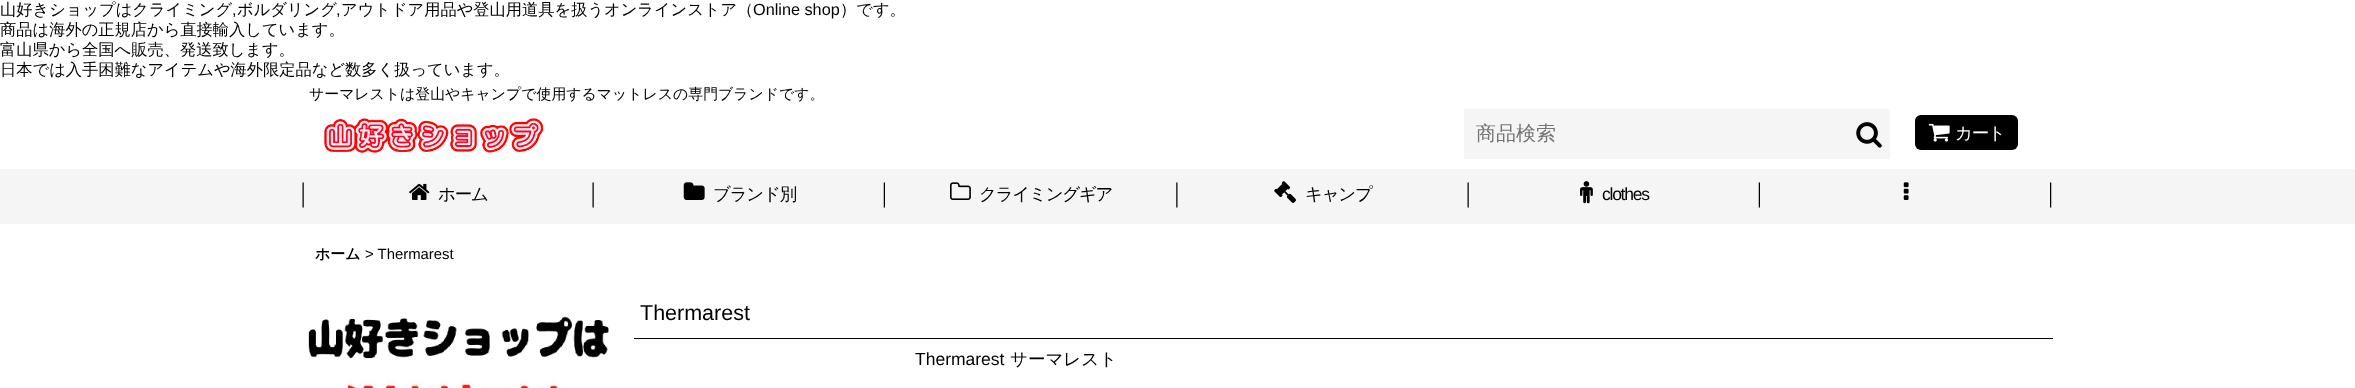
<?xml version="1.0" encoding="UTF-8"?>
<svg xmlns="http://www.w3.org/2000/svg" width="2355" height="388">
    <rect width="100%" height="100%" fill="#FFFFFF"/>
    <text x="0" y="15" font-family="WenQuanYi Zen Hei" font-size="16.25" font-weight="500" fill="#000000">山好きショップはクライミング</text>
    <text x="232" y="15" font-family="Liberation Sans" font-size="16.25" fill="#000000">,</text>
    <text x="237" y="15" font-family="WenQuanYi Zen Hei" font-size="16.25" font-weight="500" fill="#000000">ボルダリング</text>
    <text x="336" y="15" font-family="Liberation Sans" font-size="16.25" fill="#000000">,</text>
    <text x="341" y="15" font-family="WenQuanYi Zen Hei" font-size="16.25" font-weight="500" fill="#000000">アウトドア用品や登山用道具を扱うオンラインストア（</text>
    <text x="753" y="15" font-family="Liberation Sans" font-size="16.25" fill="#000000">Online shop</text>
    <text x="840" y="15" font-family="WenQuanYi Zen Hei" font-size="16.25" font-weight="500" fill="#000000">）です。</text>
    <text font-family="WenQuanYi Zen Hei" font-size="16.25" font-weight="500" fill="#000000">
        <tspan x="0" y="35">商品は海外の正規店から直接輸入しています。</tspan>
        <tspan x="0" y="55">富山県から全国へ販売、発送致します。</tspan>
        <tspan x="0" y="75">日本では入手困難なアイテムや海外限定品など数多く扱っています。</tspan>
    </text>
    <text x="309" y="99" font-family="WenQuanYi Zen Hei" font-size="14.9" font-weight="500" fill="#000000">サーマレストは登山やキャンプで使用するマットレスの専門ブランドです。</text>
    <rect x="1464" y="109" width="426" height="50" fill="#F5F5F5"/>
    <text x="1476" y="140" font-family="WenQuanYi Zen Hei" font-size="20" font-weight="500" fill="#757575">商品検索</text>
    <image x="1856" y="122" width="26" height="26" href="img_01.png"/>
    <image x="324" y="118" width="220" height="35" href="img_02.png"/>
    <rect x="1915" y="115" width="103" height="35" rx="6" fill="#000000"/>
    <image x="1928" y="123" width="22" height="19" href="img_03.png"/>
    <text x="1955" y="139" font-family="WenQuanYi Zen Hei" font-size="17.5" font-weight="500" letter-spacing="-1.25" fill="#FFFFFF">カート</text>
    <rect x="0" y="169" width="2355" height="55" fill="#F5F5F5"/>
    <image x="302" y="182" width="292" height="26" href="img_04.png"/>
    <image x="409" y="183" width="21" height="17" href="img_05.png"/>
    <text x="438" y="200" font-family="WenQuanYi Zen Hei" font-size="17.5" font-weight="500" letter-spacing="-1.25" fill="#000000">ホーム</text>
    <image x="883" y="182" width="2" height="26" href="img_06.png"/>
    <image x="683" y="182" width="22" height="18" href="img_07.png"/>
    <text x="713" y="200" font-family="WenQuanYi Zen Hei" font-size="17.5" font-weight="500" letter-spacing="-1.25" fill="#000000">ブランド別</text>
    <image x="1176" y="182" width="2" height="26" href="img_08.png"/>
    <image x="950" y="182" width="21" height="18" href="img_09.png"/>
    <text x="979" y="200" font-family="WenQuanYi Zen Hei" font-size="17.5" font-weight="500" letter-spacing="-1.25" fill="#000000">クライミングギア</text>
    <image x="1467" y="182" width="2" height="26" href="img_10.png"/>
    <image x="1274" y="181" width="22" height="22" href="img_11.png"/>
    <text x="1305" y="200" font-family="WenQuanYi Zen Hei" font-size="17.5" font-weight="500" letter-spacing="-1.25" fill="#000000">キャンプ</text>
    <image x="1758" y="182" width="2" height="26" href="img_06.png"/>
    <image x="1580" y="181" width="13" height="23" href="img_12.png"/>
    <text x="1602" y="200" font-family="Liberation Sans" font-size="17.5" letter-spacing="-1.25" fill="#000000">clothes</text>
    <image x="2050" y="182" width="2" height="26" href="img_13.png"/>
    <image x="1903" y="182" width="6" height="18" href="img_14.png"/>
    <text x="315" y="259" font-family="WenQuanYi Zen Hei" font-size="14.9" font-weight="700" fill="#000000">ホーム</text>
    <text x="365" y="259" font-family="Liberation Sans" font-size="14.9" fill="#000000">&gt; Thermarest</text>
    <image x="308" y="316" width="301" height="72" href="img_15.png"/>
    <rect x="634" y="338" width="1419" height="1" fill="#000000"/>
    <text x="640" y="320" font-family="Liberation Sans" font-size="21.5" fill="#000000">Thermarest</text>
    <text x="915" y="365" font-family="Liberation Sans" font-size="17.5" fill="#000000">Thermarest</text>
    <text x="1010" y="365" font-family="WenQuanYi Zen Hei" font-size="17.5" font-weight="500" fill="#000000">サーマレスト</text>
</svg>
